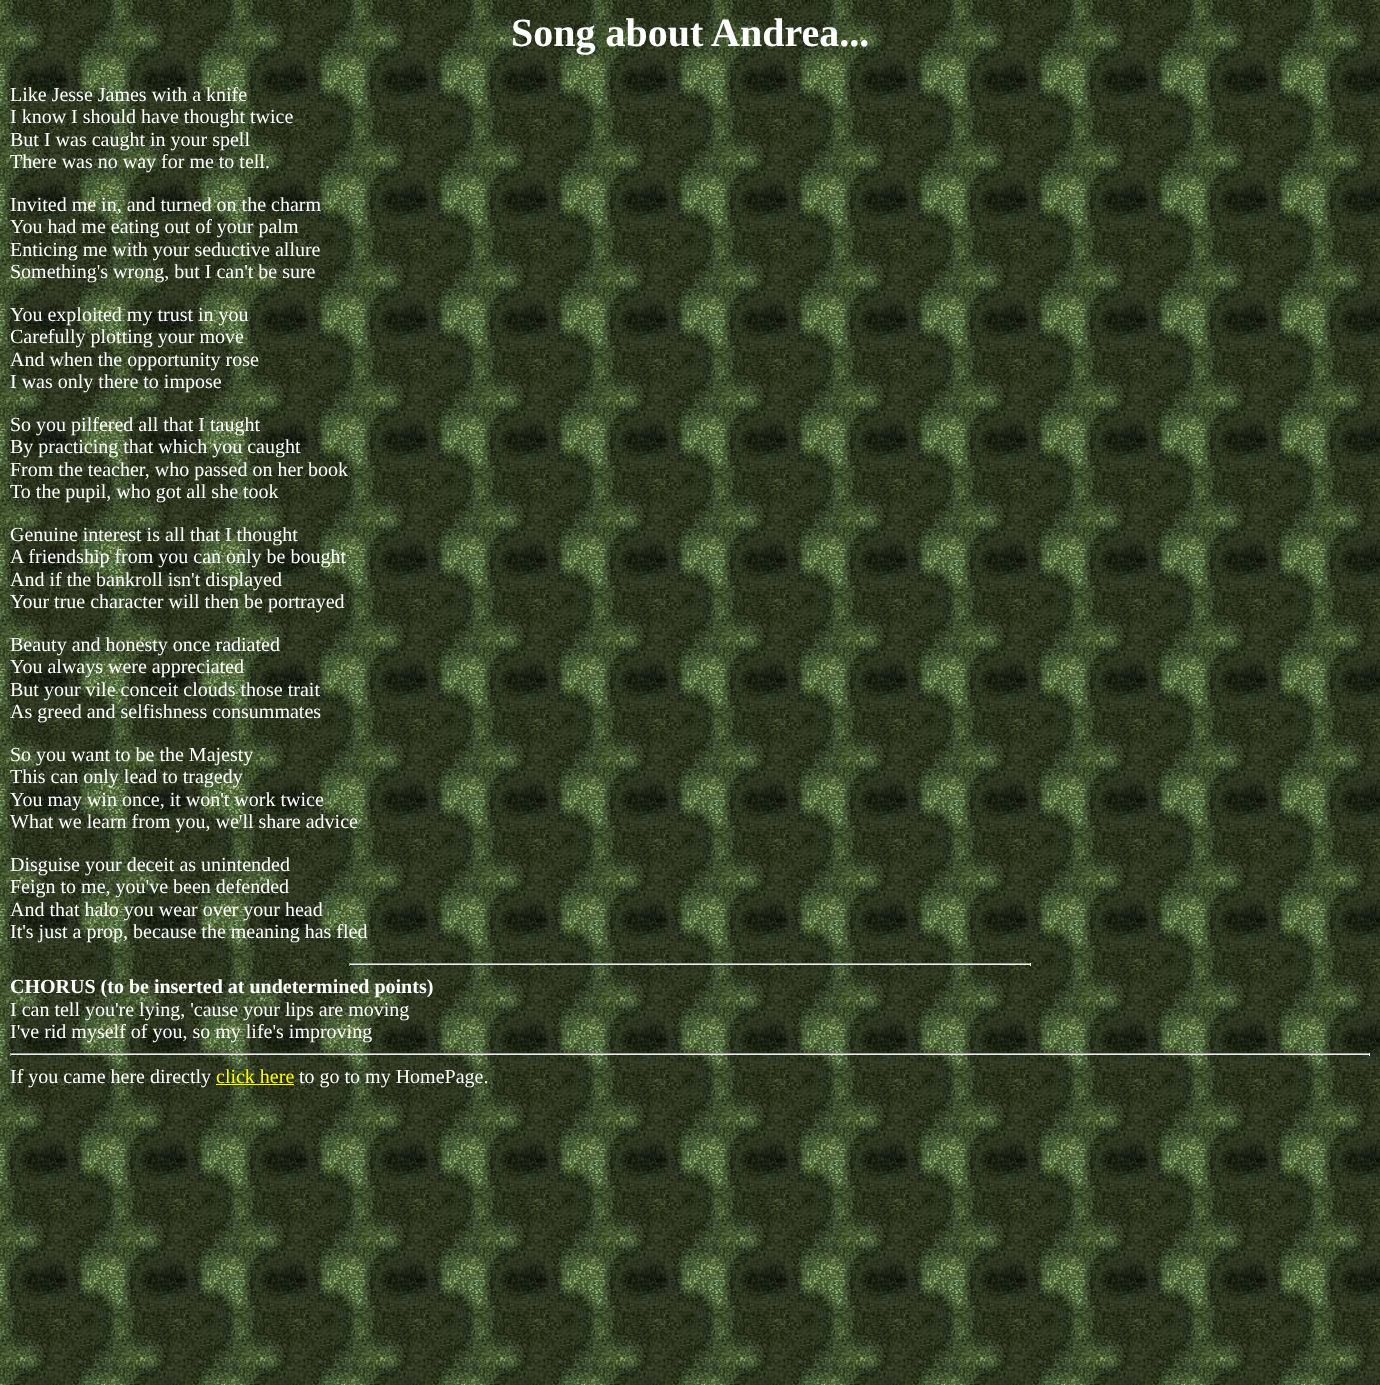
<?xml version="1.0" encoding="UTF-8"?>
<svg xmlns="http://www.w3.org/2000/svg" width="1380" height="1385">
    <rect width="100%" height="100%" fill="#FFFFFF"/>
    <image x="0" y="0" width="1380" height="1385" href="img_01.png"/>
    <text x="511" y="46" font-family="Liberation Serif" font-size="40" font-weight="700" fill="#FFFFFF">Song about Andrea...</text>
    <text font-family="Liberation Serif" font-size="20" fill="#FFFFFF">
        <tspan x="10" y="101">Like Jesse James with a knife</tspan>
        <tspan x="10" y="123">I know I should have thought twice</tspan>
        <tspan x="10" y="146">But I was caught in your spell</tspan>
        <tspan x="10" y="168">There was no way for me to tell.</tspan>
    </text>
    <text font-family="Liberation Serif" font-size="20" fill="#FFFFFF">
        <tspan x="10" y="211">Invited me in, and turned on the charm</tspan>
        <tspan x="10" y="233">You had me eating out of your palm</tspan>
        <tspan x="10" y="256">Enticing me with your seductive allure</tspan>
        <tspan x="10" y="278">Something's wrong, but I can't be sure</tspan>
    </text>
    <text font-family="Liberation Serif" font-size="20" fill="#FFFFFF">
        <tspan x="10" y="321">You exploited my trust in you</tspan>
        <tspan x="10" y="343">Carefully plotting your move</tspan>
        <tspan x="10" y="366">And when the opportunity rose</tspan>
        <tspan x="10" y="388">I was only there to impose</tspan>
    </text>
    <text font-family="Liberation Serif" font-size="20" fill="#FFFFFF">
        <tspan x="10" y="431">So you pilfered all that I taught</tspan>
        <tspan x="10" y="453">By practicing that which you caught</tspan>
        <tspan x="10" y="476">From the teacher, who passed on her book</tspan>
        <tspan x="10" y="498">To the pupil, who got all she took</tspan>
    </text>
    <text font-family="Liberation Serif" font-size="20" fill="#FFFFFF">
        <tspan x="10" y="541">Genuine interest is all that I thought</tspan>
        <tspan x="10" y="563">A friendship from you can only be bought</tspan>
        <tspan x="10" y="586">And if the bankroll isn't displayed</tspan>
        <tspan x="10" y="608">Your true character will then be portrayed</tspan>
    </text>
    <text font-family="Liberation Serif" font-size="20" fill="#FFFFFF">
        <tspan x="10" y="651">Beauty and honesty once radiated</tspan>
        <tspan x="10" y="673">You always were appreciated</tspan>
        <tspan x="10" y="696">But your vile conceit clouds those trait</tspan>
        <tspan x="10" y="718">As greed and selfishness consummates</tspan>
    </text>
    <text font-family="Liberation Serif" font-size="20" fill="#FFFFFF">
        <tspan x="10" y="761">So you want to be the Majesty</tspan>
        <tspan x="10" y="783">This can only lead to tragedy</tspan>
        <tspan x="10" y="806">You may win once, it won't work twice</tspan>
        <tspan x="10" y="828">What we learn from you, we'll share advice</tspan>
    </text>
    <text font-family="Liberation Serif" font-size="20" fill="#FFFFFF">
        <tspan x="10" y="871">Disguise your deceit as unintended</tspan>
        <tspan x="10" y="893">Feign to me, you've been defended</tspan>
        <tspan x="10" y="916">And that halo you wear over your head</tspan>
        <tspan x="10" y="938">It's just a prop, because the meaning has fled</tspan>
    </text>
    <rect x="349" y="963" width="682" height="1" fill="#9F9F9F"/>
    <rect x="1030" y="963" width="1" height="3" fill="#EEEEEE"/>
    <rect x="349" y="964" width="682" height="1" fill="#EEEEEE"/>
    <rect x="349" y="963" width="1" height="3" fill="#9F9F9F"/>
    <text x="10" y="993" font-family="Liberation Serif" font-size="20" font-weight="700" fill="#FFFFFF">CHORUS (to be inserted at undetermined points)</text>
    <text font-family="Liberation Serif" font-size="20" fill="#FFFFFF">
        <tspan x="10" y="1016">I can tell you're lying, 'cause your lips are moving</tspan>
        <tspan x="10" y="1038">I've rid myself of you, so my life's improving</tspan>
    </text>
    <rect x="10" y="1053" width="1360" height="1" fill="#9F9F9F"/>
    <rect x="1369" y="1053" width="1" height="3" fill="#EEEEEE"/>
    <rect x="10" y="1054" width="1360" height="1" fill="#EEEEEE"/>
    <rect x="10" y="1053" width="1" height="3" fill="#9F9F9F"/>
    <text x="10" y="1083" font-family="Liberation Serif" font-size="20" fill="#FFFFFF">If you came here directly</text>
    <text x="216" y="1083" font-family="Liberation Serif" font-size="20" fill="#FFFF00">click here</text>
    <rect x="216" y="1084" width="78" height="1" fill="#FFFF00"/>
    <text x="299" y="1083" font-family="Liberation Serif" font-size="20" fill="#FFFFFF">to go to my HomePage.</text>
</svg>
